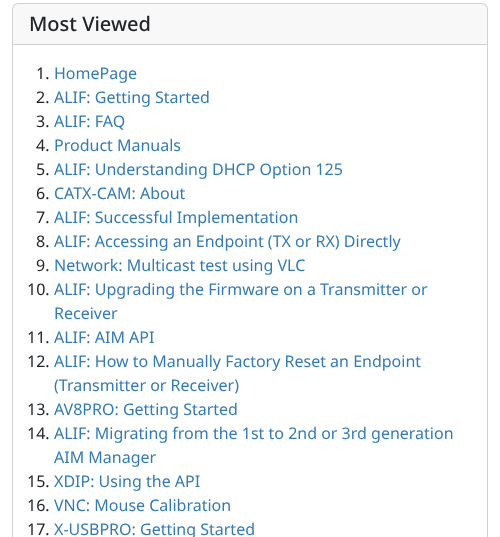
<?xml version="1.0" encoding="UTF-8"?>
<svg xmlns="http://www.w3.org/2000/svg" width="500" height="537">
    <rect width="100%" height="100%" fill="#FFFFFF"/>
    <rect x="12.5" y="3.5" width="475" height="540" rx="5.5" fill="none" stroke="#D2D2D2"/>
    <rect x="13" y="4" width="474" height="40" fill="#212529" fill-opacity="0.03"/>
    <rect x="13" y="44" width="474" height="1" fill="#CDCDCD"/>
    <text x="29" y="31" font-family="Noto Sans" font-size="20" font-weight="500" fill="#212529">Most Viewed</text>
    <text x="36" y="79" font-family="Noto Sans" font-size="16" fill="#212529">1.</text>
    <text x="54" y="79" font-family="Noto Sans" font-size="16" fill="#337AB7">HomePage</text>
    <text x="36" y="103" font-family="Noto Sans" font-size="16" fill="#212529">2.</text>
    <text x="54" y="103" font-family="Noto Sans" font-size="16" fill="#337AB7">ALIF: Getting Started</text>
    <text x="36" y="127" font-family="Noto Sans" font-size="16" fill="#212529">3.</text>
    <text x="54" y="127" font-family="Noto Sans" font-size="16" fill="#337AB7">ALIF: FAQ</text>
    <text x="36" y="151" font-family="Noto Sans" font-size="16" fill="#212529">4.</text>
    <text x="54" y="151" font-family="Noto Sans" font-size="16" fill="#337AB7">Product Manuals</text>
    <text x="36" y="175" font-family="Noto Sans" font-size="16" fill="#212529">5.</text>
    <text x="54" y="175" font-family="Noto Sans" font-size="16" fill="#337AB7">ALIF: Understanding DHCP Option 125</text>
    <text x="36" y="199" font-family="Noto Sans" font-size="16" fill="#212529">6.</text>
    <text x="54" y="199" font-family="Noto Sans" font-size="16" fill="#337AB7">CATX-CAM: About</text>
    <text x="36" y="223" font-family="Noto Sans" font-size="16" fill="#212529">7.</text>
    <text x="54" y="223" font-family="Noto Sans" font-size="16" fill="#337AB7">ALIF: Successful Implementation</text>
    <text x="36" y="247" font-family="Noto Sans" font-size="16" fill="#212529">8.</text>
    <text x="54" y="247" font-family="Noto Sans" font-size="16" fill="#337AB7">ALIF: Accessing an Endpoint (TX or RX) Directly</text>
    <text x="36" y="271" font-family="Noto Sans" font-size="16" fill="#212529">9.</text>
    <text x="54" y="271" font-family="Noto Sans" font-size="16" fill="#337AB7">Network: Multicast test using VLC</text>
    <text x="27" y="295" font-family="Noto Sans" font-size="16" fill="#212529">10.</text>
    <text font-family="Noto Sans" font-size="16" fill="#337AB7">
        <tspan x="54" y="295">ALIF: Upgrading the Firmware on a Transmitter or</tspan>
        <tspan x="54" y="319">Receiver</tspan>
    </text>
    <text x="27" y="343" font-family="Noto Sans" font-size="16" fill="#212529">11.</text>
    <text x="54" y="343" font-family="Noto Sans" font-size="16" fill="#337AB7">ALIF: AIM API</text>
    <text x="27" y="367" font-family="Noto Sans" font-size="16" fill="#212529">12.</text>
    <text font-family="Noto Sans" font-size="16" fill="#337AB7">
        <tspan x="54" y="367">ALIF: How to Manually Factory Reset an Endpoint</tspan>
        <tspan x="54" y="391">(Transmitter or Receiver)</tspan>
    </text>
    <text x="27" y="415" font-family="Noto Sans" font-size="16" fill="#212529">13.</text>
    <text x="54" y="415" font-family="Noto Sans" font-size="16" fill="#337AB7">AV8PRO: Getting Started</text>
    <text x="27" y="439" font-family="Noto Sans" font-size="16" fill="#212529">14.</text>
    <text font-family="Noto Sans" font-size="16" fill="#337AB7">
        <tspan x="54" y="439">ALIF: Migrating from the 1st to 2nd or 3rd generation</tspan>
        <tspan x="54" y="463">AIM Manager</tspan>
    </text>
    <text x="27" y="487" font-family="Noto Sans" font-size="16" fill="#212529">15.</text>
    <text x="54" y="487" font-family="Noto Sans" font-size="16" fill="#337AB7">XDIP: Using the API</text>
    <text x="27" y="511" font-family="Noto Sans" font-size="16" fill="#212529">16.</text>
    <text x="54" y="511" font-family="Noto Sans" font-size="16" fill="#337AB7">VNC: Mouse Calibration</text>
    <text x="27" y="535" font-family="Noto Sans" font-size="16" fill="#212529">17.</text>
    <text x="54" y="535" font-family="Noto Sans" font-size="16" fill="#337AB7">X-USBPRO: Getting Started</text>
</svg>
